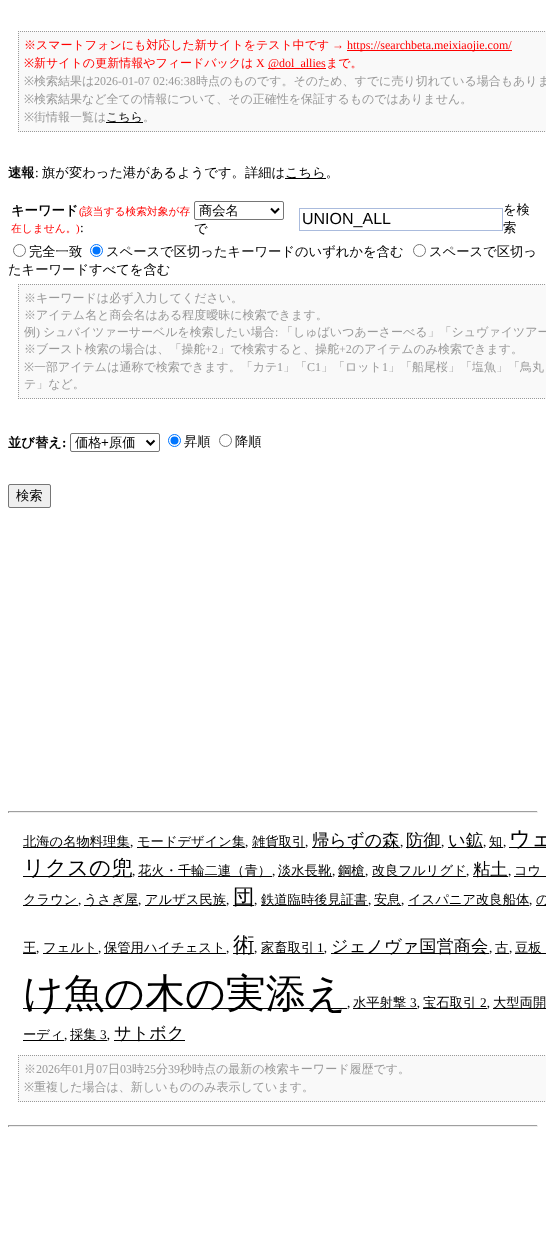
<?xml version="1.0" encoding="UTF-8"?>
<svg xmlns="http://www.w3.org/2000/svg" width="546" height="1251">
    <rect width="100%" height="100%" fill="#FFFFFF"/>
    <rect x="18" y="31" width="528" height="101" fill="#F9F9F9"/>
    <path d="M 18 31.5 H 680" fill="none" stroke="#999999" stroke-dasharray="1 1"/>
    <path d="M 18 131.5 H 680" fill="none" stroke="#999999" stroke-dasharray="1 1"/>
    <path d="M 18.5 31 V 132" fill="none" stroke="#999999" stroke-dasharray="1 1"/>
    <text x="24" y="49" font-family="WenQuanYi Zen Hei" font-size="12" font-weight="500" fill="#FF0000">※スマートフォンにも対応した新サイトをテスト中です</text>
    <text x="332" y="49" font-family="Liberation Serif" font-size="12" fill="#FF0000">→</text>
    <rect x="347" y="50" width="165" height="1" fill="#FF0000"/>
    <text x="347" y="49" font-family="Liberation Serif" font-size="12" fill="#FF0000">https://searchbeta.meixiaojie.com/</text>
    <text x="24" y="67" font-family="Noto Sans" font-size="12" fill="#FF0000">※</text>
    <text x="34" y="67" font-family="WenQuanYi Zen Hei" font-size="12" font-weight="500" fill="#FF0000">新サイトの更新情報やフィードバックは</text>
    <text x="256" y="67" font-family="Liberation Serif" font-size="12" fill="#FF0000">X</text>
    <rect x="268" y="68" width="58" height="1" fill="#FF0000"/>
    <text x="268" y="67" font-family="Liberation Serif" font-size="12" fill="#FF0000">@dol_allies</text>
    <text x="326" y="67" font-family="WenQuanYi Zen Hei" font-size="12" font-weight="500" fill="#FF0000">まで。</text>
    <text x="24" y="85" font-family="Noto Sans" font-size="12" fill="#999999">※</text>
    <text x="34" y="85" font-family="WenQuanYi Zen Hei" font-size="12" font-weight="500" fill="#999999">検索結果は</text>
    <text x="94" y="85" font-family="Liberation Serif" font-size="12" fill="#999999">2026-01-07 02:46:38</text>
    <text x="196" y="85" font-family="WenQuanYi Zen Hei" font-size="12" font-weight="500" fill="#999999">時点のものです。そのため、すでに売り切れている場合もありま</text>
    <text x="24" y="103" font-family="Noto Sans" font-size="12" fill="#999999">※</text>
    <text x="34" y="103" font-family="WenQuanYi Zen Hei" font-size="12" font-weight="500" fill="#999999">検索結果など全ての情報について、その正確性を保証するものではありません。</text>
    <text x="24" y="121" font-family="Noto Sans" font-size="12" fill="#999999">※</text>
    <text x="34" y="121" font-family="WenQuanYi Zen Hei" font-size="12" font-weight="500" fill="#999999">街情報一覧は</text>
    <rect x="106" y="122" width="37" height="1" fill="#000000"/>
    <text x="106" y="121" font-family="WenQuanYi Zen Hei" font-size="12" font-weight="500" fill="#000000">こちら</text>
    <text x="143" y="121" font-family="WenQuanYi Zen Hei" font-size="12" font-weight="500" fill="#999999">。</text>
    <text x="8" y="177" font-family="WenQuanYi Zen Hei" font-size="13.3" font-weight="700" fill="#000000">速報</text>
    <text x="35" y="177" font-family="Liberation Serif" font-size="13.3" fill="#000000">:</text>
    <text x="42" y="177" font-family="WenQuanYi Zen Hei" font-size="13.3" font-weight="500" fill="#000000">旗が変わった港があるようです。詳細は</text>
    <rect x="285" y="178" width="41" height="1" fill="#000000"/>
    <text x="285" y="177" font-family="WenQuanYi Zen Hei" font-size="13.3" font-weight="500" fill="#000000">こちら。</text>
    <text x="11" y="215" font-family="WenQuanYi Zen Hei" font-size="13.3" font-weight="700" fill="#000000">キーワード</text>
    <text x="79" y="215" font-family="Liberation Serif" font-size="10.75" fill="#FF0000">(</text>
    <text x="82" y="215" font-family="WenQuanYi Zen Hei" font-size="10.75" font-weight="500" fill="#FF0000">該当する検索対象が存</text>
    <text x="11" y="232" font-family="WenQuanYi Zen Hei" font-size="10.75" font-weight="500" fill="#FF0000">在しません。</text>
    <text x="76" y="232" font-family="Liberation Serif" font-size="10.75" fill="#FF0000">)</text>
    <text x="80" y="232" font-family="Liberation Serif" font-size="13.3" fill="#000000">:</text>
    <rect x="194.5" y="201.5" width="89" height="18" rx="1.5" fill="none" stroke="#767676"/>
    <path d="M 271 208.5 L 275 212.5 L 279 208.5" fill="none" stroke="#000000" stroke-width="2"/>
    <text x="199" y="215" font-family="WenQuanYi Zen Hei" font-size="13.3" font-weight="500" fill="#000000">商会名</text>
    <text x="194" y="233" font-family="WenQuanYi Zen Hei" font-size="13.3" font-weight="500" fill="#000000">で</text>
    <rect x="299.5" y="208.5" width="203" height="22" fill="none" stroke="#AABBDD"/>
    <text x="302" y="224" font-family="Liberation Sans" font-size="16" fill="#000000">UNION_ALL</text>
    <text font-family="WenQuanYi Zen Hei" font-size="13.3" font-weight="500" fill="#000000">
        <tspan x="503" y="214">を検</tspan>
        <tspan x="503" y="232">索</tspan>
    </text>
    <circle cx="19.5" cy="250.5" r="6" fill="none" stroke="#767676"/>
    <text x="29" y="256" font-family="WenQuanYi Zen Hei" font-size="13.3" font-weight="500" fill="#000000">完全一致</text>
    <circle cx="96.5" cy="250.5" r="6" fill="none" stroke="#0075FF"/>
    <circle cx="96.5" cy="250.5" r="4" fill="#0075FF"/>
    <text x="106" y="256" font-family="WenQuanYi Zen Hei" font-size="13.3" font-weight="500" fill="#000000">スペースで区切ったキーワードのいずれかを含む</text>
    <circle cx="419.5" cy="250.5" r="6" fill="none" stroke="#767676"/>
    <text x="429" y="256" font-family="WenQuanYi Zen Hei" font-size="13.3" font-weight="500" fill="#000000">スペースで区切っ</text>
    <text x="8" y="274" font-family="WenQuanYi Zen Hei" font-size="13.3" font-weight="500" fill="#000000">たキーワードすべてを含む</text>
    <rect x="18" y="284" width="528" height="115" fill="#F9F9F9"/>
    <path d="M 18 284.5 H 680" fill="none" stroke="#999999" stroke-dasharray="1 1"/>
    <path d="M 18 398.5 H 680" fill="none" stroke="#999999" stroke-dasharray="1 1"/>
    <path d="M 18.5 284 V 399" fill="none" stroke="#999999" stroke-dasharray="1 1"/>
    <text font-family="WenQuanYi Zen Hei" font-size="12" font-weight="500" fill="#999999">
        <tspan x="24" y="302">※キーワードは必ず入力してください。</tspan>
        <tspan x="24" y="319">※アイテム名と商会名はある程度曖昧に検索できます。</tspan>
        <tspan x="24" y="336">例</tspan>
    </text>
    <text x="36" y="336" font-family="Liberation Serif" font-size="12" fill="#999999">)</text>
    <text x="43" y="336" font-family="WenQuanYi Zen Hei" font-size="12" font-weight="500" fill="#999999">シュバイツァーサーベルを検索したい場合</text>
    <text x="275" y="336" font-family="Liberation Serif" font-size="12" fill="#999999">:</text>
    <text x="281" y="336" font-family="WenQuanYi Zen Hei" font-size="12" font-weight="500" fill="#999999">「しゅばいつあーさーべる」「シュヴァイツアー</text>
    <text x="24" y="353" font-family="WenQuanYi Zen Hei" font-size="12" font-weight="500" fill="#999999">※ブースト検索の場合は、「操舵</text>
    <text x="205" y="353" font-family="Liberation Serif" font-size="12" fill="#999999">+2</text>
    <text x="218" y="353" font-family="WenQuanYi Zen Hei" font-size="12" font-weight="500" fill="#999999">」で検索すると、操舵</text>
    <text x="339" y="353" font-family="Liberation Serif" font-size="12" fill="#999999">+2</text>
    <text x="352" y="353" font-family="WenQuanYi Zen Hei" font-size="12" font-weight="500" fill="#999999">のアイテムのみ検索できます。</text>
    <text x="24" y="371" font-family="Noto Sans" font-size="12" fill="#999999">※</text>
    <text x="34" y="371" font-family="WenQuanYi Zen Hei" font-size="12" font-weight="500" fill="#999999">一部アイテムは通称で検索できます。「カテ</text>
    <text x="277" y="371" font-family="Liberation Serif" font-size="12" fill="#999999">1</text>
    <text x="283" y="371" font-family="WenQuanYi Zen Hei" font-size="12" font-weight="500" fill="#999999">」「</text>
    <text x="307" y="371" font-family="Liberation Serif" font-size="12" fill="#999999">C1</text>
    <text x="321" y="371" font-family="WenQuanYi Zen Hei" font-size="12" font-weight="500" fill="#999999">」「ロット</text>
    <text x="382" y="371" font-family="Liberation Serif" font-size="12" fill="#999999">1</text>
    <text x="388" y="371" font-family="WenQuanYi Zen Hei" font-size="12" font-weight="500" fill="#999999">」「船尾桜」「塩魚」「鳥丸</text>
    <text x="24" y="388" font-family="WenQuanYi Zen Hei" font-size="12" font-weight="500" fill="#999999">テ」など。</text>
    <text x="8" y="447" font-family="WenQuanYi Zen Hei" font-size="13.3" font-weight="700" fill="#000000">並び替え</text>
    <text x="62" y="447" font-family="Liberation Serif" font-size="13.3" font-weight="700" fill="#000000">:</text>
    <rect x="70.5" y="433.5" width="89" height="18" rx="1.5" fill="none" stroke="#767676"/>
    <path d="M 146.5 440.5 L 150.5 444.5 L 154.5 440.5" fill="none" stroke="#000000" stroke-width="2"/>
    <text x="75" y="447" font-family="WenQuanYi Zen Hei" font-size="13.3" font-weight="500" fill="#000000">価格</text>
    <text x="101" y="447" font-family="Liberation Sans" font-size="13.3" fill="#000000">+</text>
    <text x="109" y="447" font-family="WenQuanYi Zen Hei" font-size="13.3" font-weight="500" fill="#000000">原価</text>
    <circle cx="174.5" cy="440.5" r="6" fill="none" stroke="#0075FF"/>
    <circle cx="174.5" cy="440.5" r="4" fill="#0075FF"/>
    <text x="184" y="446" font-family="WenQuanYi Zen Hei" font-size="13.3" font-weight="500" fill="#000000">昇順</text>
    <circle cx="225.5" cy="440.5" r="6" fill="none" stroke="#767676"/>
    <text x="235" y="446" font-family="WenQuanYi Zen Hei" font-size="13.3" font-weight="500" fill="#000000">降順</text>
    <rect x="8.5" y="484.5" width="42" height="23" rx="1.5" fill="#EFEFEF" stroke="#767676"/>
    <text x="16" y="500" font-family="WenQuanYi Zen Hei" font-size="13.3" font-weight="500" fill="#000000">検索</text>
    <rect x="8" y="811" width="530" height="1" fill="#9F9F9F"/>
    <rect x="537" y="811" width="1" height="2" fill="#EEEEEE"/>
    <rect x="8" y="812" width="530" height="1" fill="#EEEEEE"/>
    <rect x="8" y="811" width="1" height="2" fill="#9F9F9F"/>
    <rect x="23" y="847" width="107" height="1" fill="#000000"/>
    <text x="23" y="846" font-family="WenQuanYi Zen Hei" font-size="13.3" font-weight="500" fill="#000000">北海の名物料理集</text>
    <text x="130" y="846" font-family="Liberation Serif" font-size="13.3" fill="#000000">,</text>
    <rect x="137" y="847" width="108" height="1" fill="#000000"/>
    <text x="137" y="846" font-family="WenQuanYi Zen Hei" font-size="13.3" font-weight="500" fill="#000000">モードデザイン集</text>
    <text x="245" y="846" font-family="Liberation Serif" font-size="13.3" fill="#000000">,</text>
    <rect x="252" y="847" width="53" height="1" fill="#000000"/>
    <text x="252" y="846" font-family="WenQuanYi Zen Hei" font-size="13.3" font-weight="500" fill="#000000">雑貨取引</text>
    <text x="305" y="846" font-family="Liberation Serif" font-size="13.3" fill="#000000">,</text>
    <rect x="312" y="847" width="88" height="1" fill="#000000"/>
    <text x="312" y="846" font-family="WenQuanYi Zen Hei" font-size="17.25" font-weight="500" fill="#000000">帰らずの森</text>
    <text x="400" y="846" font-family="Liberation Serif" font-size="13.3" fill="#000000">,</text>
    <rect x="406" y="847" width="35" height="1" fill="#000000"/>
    <text x="406" y="846" font-family="WenQuanYi Zen Hei" font-size="17.25" font-weight="500" fill="#000000">防御</text>
    <text x="441" y="846" font-family="Liberation Serif" font-size="13.3" fill="#000000">,</text>
    <rect x="448" y="847" width="35" height="1" fill="#000000"/>
    <text x="448" y="846" font-family="WenQuanYi Zen Hei" font-size="17.25" font-weight="500" fill="#000000">い鉱</text>
    <text x="483" y="846" font-family="Liberation Serif" font-size="13.3" fill="#000000">,</text>
    <rect x="489" y="847" width="14" height="1" fill="#000000"/>
    <text x="489" y="846" font-family="WenQuanYi Zen Hei" font-size="13.3" font-weight="500" fill="#000000">知</text>
    <text x="503" y="846" font-family="Liberation Serif" font-size="13.3" fill="#000000">,</text>
    <rect x="509" y="847" width="37" height="1" fill="#000000"/>
    <text x="509" y="846" font-family="WenQuanYi Zen Hei" font-size="21.5" font-weight="500" fill="#000000">ウェ</text>
    <rect x="23" y="876" width="109" height="1" fill="#000000"/>
    <text x="23" y="875" font-family="WenQuanYi Zen Hei" font-size="21.5" font-weight="500" fill="#000000">リクスの兜</text>
    <text x="132" y="875" font-family="Liberation Serif" font-size="13.3" fill="#000000">,</text>
    <rect x="138" y="876" width="134" height="1" fill="#000000"/>
    <text x="138" y="875" font-family="WenQuanYi Zen Hei" font-size="13.3" font-weight="500" fill="#000000">花火・千輪二連（青）</text>
    <text x="272" y="875" font-family="Liberation Serif" font-size="13.3" fill="#000000">,</text>
    <rect x="278" y="876" width="54" height="1" fill="#000000"/>
    <text x="278" y="875" font-family="WenQuanYi Zen Hei" font-size="13.3" font-weight="500" fill="#000000">淡水長靴</text>
    <text x="332" y="875" font-family="Liberation Serif" font-size="13.3" fill="#000000">,</text>
    <rect x="338" y="876" width="27" height="1" fill="#000000"/>
    <text x="338" y="875" font-family="WenQuanYi Zen Hei" font-size="13.3" font-weight="500" fill="#000000">鋼槍</text>
    <text x="365" y="875" font-family="Liberation Serif" font-size="13.3" fill="#000000">,</text>
    <rect x="372" y="876" width="94" height="1" fill="#000000"/>
    <text x="372" y="875" font-family="WenQuanYi Zen Hei" font-size="13.3" font-weight="500" fill="#000000">改良フルリグド</text>
    <text x="466" y="875" font-family="Liberation Serif" font-size="13.3" fill="#000000">,</text>
    <rect x="473" y="876" width="35" height="1" fill="#000000"/>
    <text x="473" y="875" font-family="WenQuanYi Zen Hei" font-size="17.25" font-weight="500" fill="#000000">粘土</text>
    <text x="508" y="875" font-family="Liberation Serif" font-size="13.3" fill="#000000">,</text>
    <rect x="514" y="876" width="32" height="1" fill="#000000"/>
    <text x="514" y="875" font-family="WenQuanYi Zen Hei" font-size="13.3" font-weight="500" fill="#000000">コウ</text>
    <rect x="23" y="905" width="55" height="1" fill="#000000"/>
    <text x="23" y="904" font-family="WenQuanYi Zen Hei" font-size="13.3" font-weight="500" fill="#000000">クラウン</text>
    <text x="78" y="904" font-family="Liberation Serif" font-size="13.3" fill="#000000">,</text>
    <rect x="84" y="905" width="54" height="1" fill="#000000"/>
    <text x="84" y="904" font-family="WenQuanYi Zen Hei" font-size="13.3" font-weight="500" fill="#000000">うさぎ屋</text>
    <text x="138" y="904" font-family="Liberation Serif" font-size="13.3" fill="#000000">,</text>
    <rect x="145" y="905" width="81" height="1" fill="#000000"/>
    <text x="145" y="904" font-family="WenQuanYi Zen Hei" font-size="13.3" font-weight="500" fill="#000000">アルザス民族</text>
    <text x="226" y="904" font-family="Liberation Serif" font-size="13.3" fill="#000000">,</text>
    <rect x="233" y="905" width="21" height="1" fill="#000000"/>
    <text x="233" y="904" font-family="WenQuanYi Zen Hei" font-size="21.5" font-weight="500" fill="#000000">団</text>
    <text x="254" y="904" font-family="Liberation Serif" font-size="13.3" fill="#000000">,</text>
    <rect x="261" y="905" width="107" height="1" fill="#000000"/>
    <text x="261" y="904" font-family="WenQuanYi Zen Hei" font-size="13.3" font-weight="500" fill="#000000">鉄道臨時後見証書</text>
    <text x="368" y="904" font-family="Liberation Serif" font-size="13.3" fill="#000000">,</text>
    <rect x="374" y="905" width="27" height="1" fill="#000000"/>
    <text x="374" y="904" font-family="WenQuanYi Zen Hei" font-size="13.3" font-weight="500" fill="#000000">安息</text>
    <text x="401" y="904" font-family="Liberation Serif" font-size="13.3" fill="#000000">,</text>
    <rect x="408" y="905" width="121" height="1" fill="#000000"/>
    <text x="408" y="904" font-family="WenQuanYi Zen Hei" font-size="13.3" font-weight="500" fill="#000000">イスパニア改良船体</text>
    <text x="529" y="904" font-family="Liberation Serif" font-size="13.3" fill="#000000">,</text>
    <rect x="536" y="905" width="10" height="1" fill="#000000"/>
    <text x="536" y="904" font-family="WenQuanYi Zen Hei" font-size="13.3" font-weight="500" fill="#000000">の</text>
    <text x="23" y="952" font-family="WenQuanYi Zen Hei" font-size="13.3" font-weight="500" fill="#000000">王</text>
    <rect x="23" y="953" width="13" height="1" fill="#000000"/>
    <text x="36" y="952" font-family="Liberation Serif" font-size="13.3" fill="#000000">,</text>
    <rect x="43" y="953" width="55" height="1" fill="#000000"/>
    <text x="43" y="952" font-family="WenQuanYi Zen Hei" font-size="13.3" font-weight="500" fill="#000000">フェルト</text>
    <text x="98" y="952" font-family="Liberation Serif" font-size="13.3" fill="#000000">,</text>
    <rect x="104" y="953" width="122" height="1" fill="#000000"/>
    <text x="104" y="952" font-family="WenQuanYi Zen Hei" font-size="13.3" font-weight="500" fill="#000000">保管用ハイチェスト</text>
    <text x="226" y="952" font-family="Liberation Serif" font-size="13.3" fill="#000000">,</text>
    <rect x="233" y="953" width="21" height="1" fill="#000000"/>
    <text x="233" y="952" font-family="WenQuanYi Zen Hei" font-size="21.5" font-weight="500" fill="#000000">術</text>
    <text x="254" y="952" font-family="Liberation Serif" font-size="13.3" fill="#000000">,</text>
    <rect x="261" y="953" width="63" height="1" fill="#000000"/>
    <text x="261" y="952" font-family="WenQuanYi Zen Hei" font-size="13.3" font-weight="500" fill="#000000">家畜取引</text>
    <text x="317" y="952" font-family="Liberation Serif" font-size="13.3" fill="#000000">1,</text>
    <rect x="331" y="953" width="158" height="1" fill="#000000"/>
    <text x="331" y="952" font-family="WenQuanYi Zen Hei" font-size="17.25" font-weight="500" fill="#000000">ジェノヴァ国営商会</text>
    <text x="489" y="952" font-family="Liberation Serif" font-size="13.3" fill="#000000">,</text>
    <rect x="495" y="953" width="14" height="1" fill="#000000"/>
    <text x="495" y="952" font-family="WenQuanYi Zen Hei" font-size="13.3" font-weight="500" fill="#000000">古</text>
    <text x="509" y="952" font-family="Liberation Serif" font-size="13.3" fill="#000000">,</text>
    <rect x="515" y="953" width="31" height="1" fill="#000000"/>
    <text x="515" y="952" font-family="WenQuanYi Zen Hei" font-size="13.3" font-weight="500" fill="#000000">豆板</text>
    <rect x="23" y="1008" width="324" height="1" fill="#000000"/>
    <text x="23" y="1007" font-family="WenQuanYi Zen Hei" font-size="40" font-weight="500" fill="#000000">け魚の木の実添え</text>
    <text x="347" y="1007" font-family="Liberation Serif" font-size="13.3" fill="#000000">,</text>
    <rect x="353" y="1008" width="64" height="1" fill="#000000"/>
    <text x="353" y="1007" font-family="WenQuanYi Zen Hei" font-size="13.3" font-weight="500" fill="#000000">水平射撃</text>
    <text x="410" y="1007" font-family="Liberation Serif" font-size="13.3" fill="#000000">3,</text>
    <rect x="423" y="1008" width="64" height="1" fill="#000000"/>
    <text x="423" y="1007" font-family="WenQuanYi Zen Hei" font-size="13.3" font-weight="500" fill="#000000">宝石取引</text>
    <text x="480" y="1007" font-family="Liberation Serif" font-size="13.3" fill="#000000">2,</text>
    <rect x="493" y="1008" width="53" height="1" fill="#000000"/>
    <text x="493" y="1007" font-family="WenQuanYi Zen Hei" font-size="13.3" font-weight="500" fill="#000000">大型両開</text>
    <rect x="23" y="1040" width="41" height="1" fill="#000000"/>
    <text x="23" y="1039" font-family="WenQuanYi Zen Hei" font-size="13.3" font-weight="500" fill="#000000">ーディ</text>
    <text x="64" y="1039" font-family="Liberation Serif" font-size="13.3" fill="#000000">,</text>
    <rect x="70" y="1040" width="37" height="1" fill="#000000"/>
    <text x="70" y="1039" font-family="WenQuanYi Zen Hei" font-size="13.3" font-weight="500" fill="#000000">採集</text>
    <text x="100" y="1039" font-family="Liberation Serif" font-size="13.3" fill="#000000">3,</text>
    <rect x="114" y="1040" width="71" height="1" fill="#000000"/>
    <text x="114" y="1039" font-family="WenQuanYi Zen Hei" font-size="17.25" font-weight="500" fill="#000000">サトボク</text>
    <rect x="18" y="1055" width="528" height="47" fill="#F9F9F9"/>
    <path d="M 18 1055.5 H 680" fill="none" stroke="#999999" stroke-dasharray="1 1"/>
    <path d="M 18 1101.5 H 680" fill="none" stroke="#999999" stroke-dasharray="1 1"/>
    <path d="M 18.5 1055 V 1102" fill="none" stroke="#999999" stroke-dasharray="1 1"/>
    <text x="24" y="1073" font-family="WenQuanYi Zen Hei" font-size="12" font-weight="500" fill="#999999">※</text>
    <text x="36" y="1073" font-family="Liberation Serif" font-size="12" fill="#999999">2026</text>
    <text x="60" y="1073" font-family="WenQuanYi Zen Hei" font-size="12" font-weight="500" fill="#999999">年</text>
    <text x="72" y="1073" font-family="Liberation Serif" font-size="12" fill="#999999">01</text>
    <text x="84" y="1073" font-family="WenQuanYi Zen Hei" font-size="12" font-weight="500" fill="#999999">月</text>
    <text x="96" y="1073" font-family="Liberation Serif" font-size="12" fill="#999999">07</text>
    <text x="108" y="1073" font-family="WenQuanYi Zen Hei" font-size="12" font-weight="500" fill="#999999">日</text>
    <text x="120" y="1073" font-family="Liberation Serif" font-size="12" fill="#999999">03</text>
    <text x="132" y="1073" font-family="WenQuanYi Zen Hei" font-size="12" font-weight="500" fill="#999999">時</text>
    <text x="144" y="1073" font-family="Liberation Serif" font-size="12" fill="#999999">25</text>
    <text x="156" y="1073" font-family="WenQuanYi Zen Hei" font-size="12" font-weight="500" fill="#999999">分</text>
    <text x="168" y="1073" font-family="Liberation Serif" font-size="12" fill="#999999">39</text>
    <text x="180" y="1073" font-family="WenQuanYi Zen Hei" font-size="12" font-weight="500" fill="#999999">秒時点の最新の検索キーワード履歴です。</text>
    <text x="24" y="1091" font-family="Noto Sans" font-size="12" fill="#999999">※</text>
    <text x="34" y="1091" font-family="WenQuanYi Zen Hei" font-size="12" font-weight="500" fill="#999999">重複した場合は、新しいもののみ表示しています。</text>
    <rect x="8" y="1125" width="530" height="1" fill="#9F9F9F"/>
    <rect x="537" y="1125" width="1" height="2" fill="#EEEEEE"/>
    <rect x="8" y="1126" width="530" height="1" fill="#EEEEEE"/>
    <rect x="8" y="1125" width="1" height="2" fill="#9F9F9F"/>
</svg>
